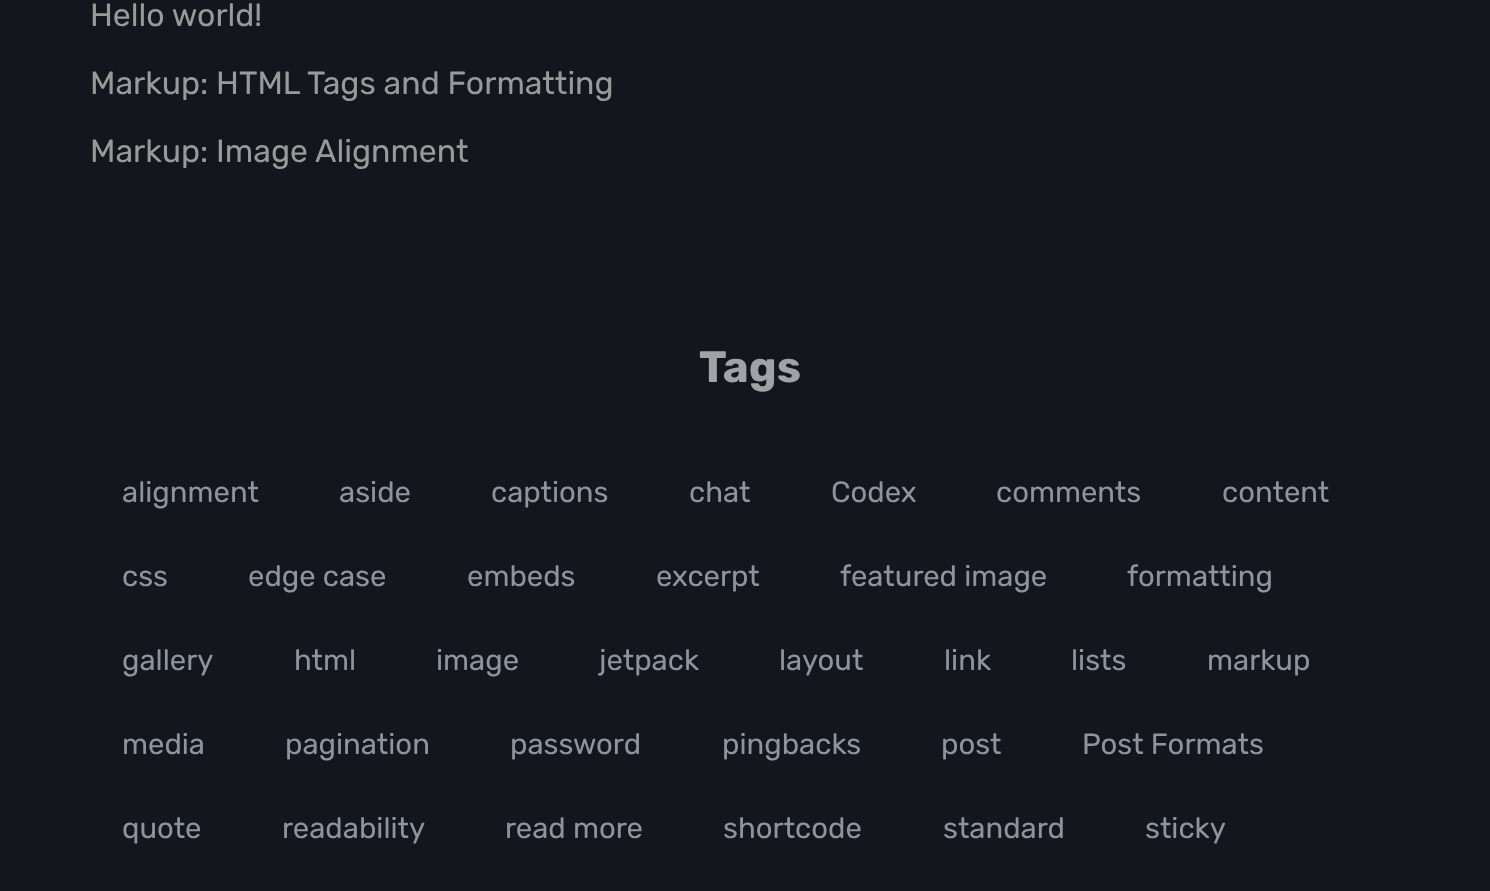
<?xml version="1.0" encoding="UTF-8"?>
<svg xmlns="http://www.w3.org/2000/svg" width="1490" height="891">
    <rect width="100%" height="100%" fill="#13171D"/>
    <text x="90" y="26" font-family="Rubik" font-size="32" fill="#999999">Hello world!</text>
    <text x="90" y="94" font-family="Rubik" font-size="32" fill="#999999">Markup: HTML Tags and Formatting</text>
    <text x="90" y="162" font-family="Rubik" font-size="32" fill="#999999">Markup: Image Alignment</text>
    <text x="699" y="382" font-family="Rubik" font-size="44" font-weight="700" fill="#A1A2A5">Tags</text>
    <text x="122" y="502" font-family="Rubik" font-size="29.25" fill="#8D949E">alignment</text>
    <text x="339" y="502" font-family="Rubik" font-size="29.25" fill="#8D949E">aside</text>
    <text x="491" y="502" font-family="Rubik" font-size="29.25" fill="#8D949E">captions</text>
    <text x="689" y="502" font-family="Rubik" font-size="29.25" fill="#8D949E">chat</text>
    <text x="831" y="502" font-family="Rubik" font-size="29.25" fill="#8D949E">Codex</text>
    <text x="996" y="502" font-family="Rubik" font-size="29.25" fill="#8D949E">comments</text>
    <text x="1222" y="502" font-family="Rubik" font-size="29.25" fill="#8D949E">content</text>
    <text x="122" y="586" font-family="Rubik" font-size="29.25" fill="#8D949E">css</text>
    <text x="248" y="586" font-family="Rubik" font-size="29.25" fill="#8D949E">edge case</text>
    <text x="467" y="586" font-family="Rubik" font-size="29.25" fill="#8D949E">embeds</text>
    <text x="656" y="586" font-family="Rubik" font-size="29.25" fill="#8D949E">excerpt</text>
    <text x="840" y="586" font-family="Rubik" font-size="29.25" fill="#8D949E">featured image</text>
    <text x="1127" y="586" font-family="Rubik" font-size="29.25" fill="#8D949E">formatting</text>
    <text x="122" y="670" font-family="Rubik" font-size="29.25" fill="#8D949E">gallery</text>
    <text x="294" y="670" font-family="Rubik" font-size="29.25" fill="#8D949E">html</text>
    <text x="436" y="670" font-family="Rubik" font-size="29.25" fill="#8D949E">image</text>
    <text x="599" y="670" font-family="Rubik" font-size="29.25" fill="#8D949E">jetpack</text>
    <text x="779" y="670" font-family="Rubik" font-size="29.25" fill="#8D949E">layout</text>
    <text x="944" y="670" font-family="Rubik" font-size="29.25" fill="#8D949E">link</text>
    <text x="1071" y="670" font-family="Rubik" font-size="29.25" fill="#8D949E">lists</text>
    <text x="1207" y="670" font-family="Rubik" font-size="29.25" fill="#8D949E">markup</text>
    <text x="122" y="754" font-family="Rubik" font-size="29.25" fill="#8D949E">media</text>
    <text x="285" y="754" font-family="Rubik" font-size="29.25" fill="#8D949E">pagination</text>
    <text x="510" y="754" font-family="Rubik" font-size="29.25" fill="#8D949E">password</text>
    <text x="722" y="754" font-family="Rubik" font-size="29.25" fill="#8D949E">pingbacks</text>
    <text x="941" y="754" font-family="Rubik" font-size="29.25" fill="#8D949E">post</text>
    <text x="1082" y="754" font-family="Rubik" font-size="29.25" fill="#8D949E">Post Formats</text>
    <text x="122" y="838" font-family="Rubik" font-size="29.25" fill="#8D949E">quote</text>
    <text x="282" y="838" font-family="Rubik" font-size="29.25" fill="#8D949E">readability</text>
    <text x="505" y="838" font-family="Rubik" font-size="29.25" fill="#8D949E">read more</text>
    <text x="723" y="838" font-family="Rubik" font-size="29.25" fill="#8D949E">shortcode</text>
    <text x="943" y="838" font-family="Rubik" font-size="29.25" fill="#8D949E">standard</text>
    <text x="1145" y="838" font-family="Rubik" font-size="29.25" fill="#8D949E">sticky</text>
</svg>
